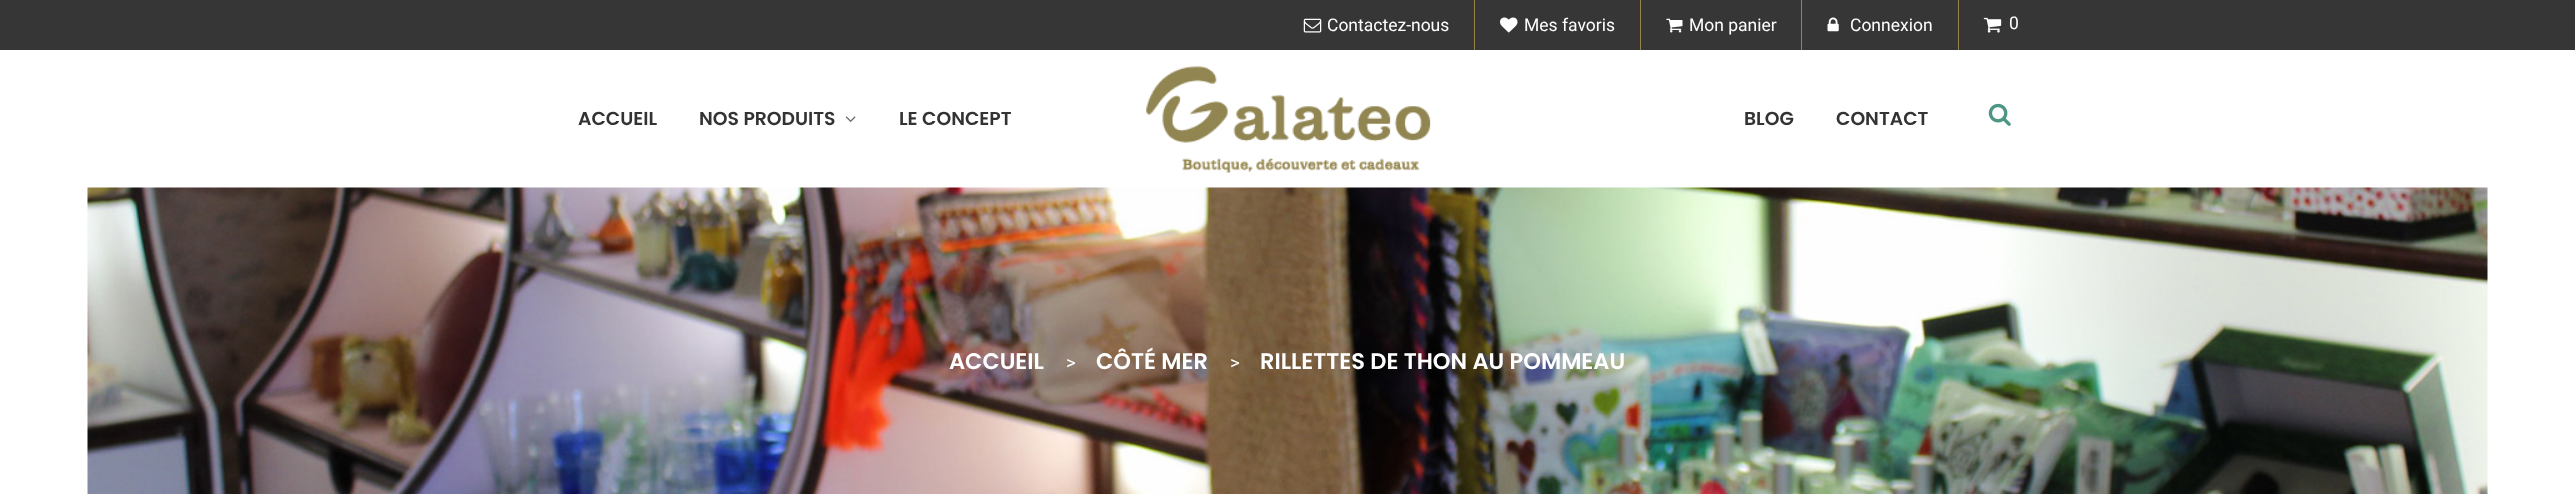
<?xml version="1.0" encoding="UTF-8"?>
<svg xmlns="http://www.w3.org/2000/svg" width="2575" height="494">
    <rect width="100%" height="100%" fill="#FFFFFF"/>
    <rect x="0" y="0" width="2575" height="50" fill="#363636"/>
    <image x="1983" y="17" width="19" height="16" href="img_01.png"/>
    <text x="2009" y="29" font-family="Roboto" font-size="17.5" fill="#FFFFFF">0</text>
    <image x="1988" y="103" width="23" height="23" href="img_02.png"/>
    <image x="1146" y="66" width="285" height="107" href="img_03.png"/>
    <text x="578" y="125" font-family="Poppins" font-size="18.75" font-weight="600" fill="#333333">ACCUEIL</text>
    <text x="699" y="125" font-family="Poppins" font-size="18.75" font-weight="600" fill="#333333">NOS PRODUITS</text>
    <image x="845" y="116" width="11" height="6" href="img_04.png"/>
    <text x="899" y="125" font-family="Poppins" font-size="18.75" font-weight="600" fill="#333333">LE CONCEPT</text>
    <text x="1744" y="125" font-family="Poppins" font-size="18.75" font-weight="600" fill="#333333">BLOG</text>
    <text x="1836" y="125" font-family="Poppins" font-size="18.75" font-weight="600" fill="#333333">CONTACT</text>
    <rect x="1474" y="0" width="1" height="50" fill="#96864D"/>
    <image x="1303" y="18" width="19" height="15" href="img_05.png"/>
    <text x="1327" y="31" font-family="Roboto" font-size="17.5" fill="#FFFFFF">Contactez-nous</text>
    <rect x="1640" y="0" width="1" height="50" fill="#96864D"/>
    <image x="1500" y="17" width="18" height="16" href="img_06.png"/>
    <text x="1524" y="31" font-family="Roboto" font-size="17.5" fill="#FFFFFF">Mes favoris</text>
    <rect x="1801" y="0" width="1" height="50" fill="#96864D"/>
    <image x="1666" y="18" width="17" height="15" href="img_07.png"/>
    <text x="1689" y="31" font-family="Roboto" font-size="17.5" fill="#FFFFFF">Mon panier</text>
    <rect x="1958" y="0" width="1" height="50" fill="#96864D"/>
    <image x="1827" y="17" width="12" height="15" href="img_08.png"/>
    <text x="1850" y="31" font-family="Roboto" font-size="17.5" fill="#FFFFFF">Connexion</text>
    <image x="87" y="187" width="2401" height="307" href="img_09.png"/>
    <text x="949" y="369" font-family="Poppins" font-size="22.5" font-weight="600" fill="#FFFFFF">ACCUEIL</text>
    <text x="1066" y="369" font-family="Roboto" font-size="18.75" fill="#FFFFFF">&gt;</text>
    <text x="1096" y="369" font-family="Poppins" font-size="22.5" font-weight="600" fill="#FFFFFF">CÔTÉ MER</text>
    <text x="1230" y="369" font-family="Roboto" font-size="18.75" fill="#FFFFFF">&gt;</text>
    <text x="1260" y="369" font-family="Poppins" font-size="22.5" font-weight="600" fill="#FFFFFF">RILLETTES DE THON AU POMMEAU</text>
</svg>
